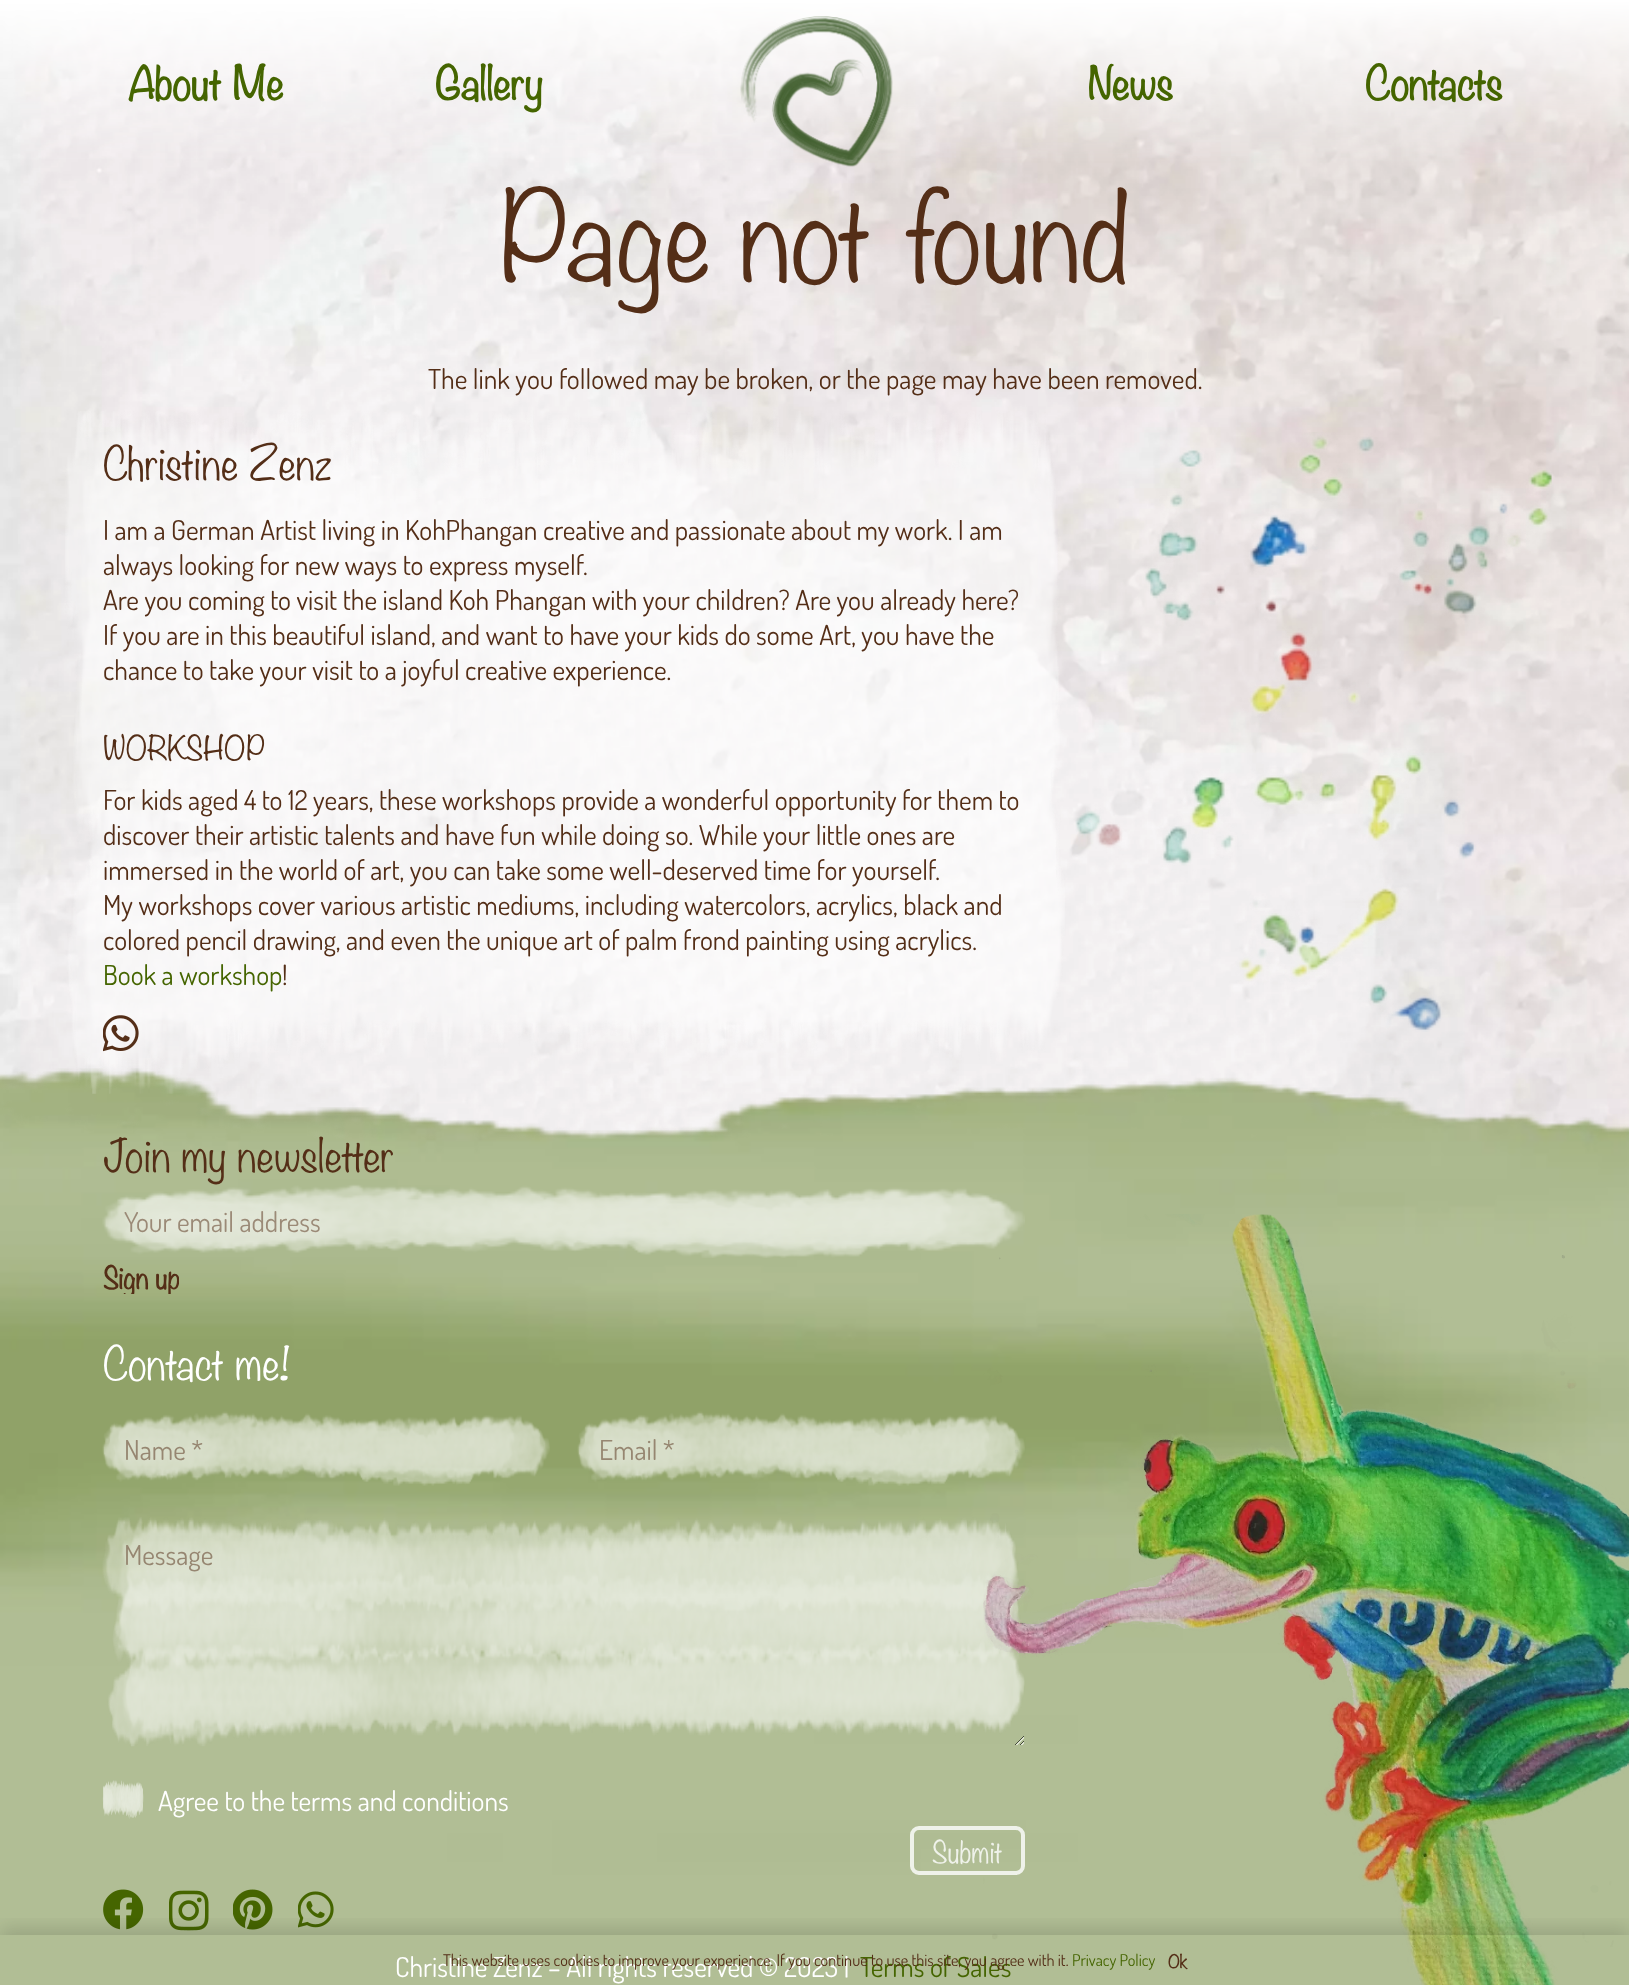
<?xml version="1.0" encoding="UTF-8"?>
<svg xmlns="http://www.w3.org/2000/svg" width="1629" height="1985">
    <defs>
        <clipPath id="clip1"><rect x="103" y="1260" width="76" height="34" rx="9"/></clipPath>
        <clipPath id="clip2"><rect x="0" y="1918" width="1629" height="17"/></clipPath>
        <filter id="blur1" x="-50%" y="-200%" width="200%" height="500%"><feGaussianBlur stdDeviation="9.5"/></filter>
    </defs>
    <rect width="100%" height="100%" fill="#FFFFFF"/>
    <image x="0" y="0" width="1629" height="1139" href="img_01.png"/>
    <text x="128" y="100" font-family="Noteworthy" font-size="41.25" font-weight="700" fill="#456500">About Me</text>
    <text x="435" y="100" font-family="Noteworthy" font-size="41.25" font-weight="700" fill="#456500">Gallery</text>
    <image x="740" y="16" width="153" height="151" href="img_02.png"/>
    <text x="1088" y="100" font-family="Noteworthy" font-size="41.25" font-weight="700" fill="#456500">News</text>
    <text x="1365" y="100" font-family="Noteworthy" font-size="41.25" font-weight="700" fill="#456500">Contacts</text>
    <text x="500" y="281" font-family="Noteworthy" font-size="110" font-weight="300" fill="#542E17">Page not found</text>
    <text x="428" y="389" font-family="Dosis" font-size="27.5" fill="#542E17">The link you followed may be broken, or the page may have been removed.</text>
    <image x="0" y="1068" width="1629" height="917" href="img_16.png"/>
    <image x="65" y="411" width="1000" height="683" href="img_03.png"/>
    <text x="103" y="480" font-family="Noteworthy" font-size="41.25" font-weight="300" fill="#542E17">Christine Zenz</text>
    <text font-family="Dosis" font-size="27.5" fill="#542E17">
        <tspan x="103" y="540">I am a German Artist living in KohPhangan creative and passionate about my work. I am</tspan>
        <tspan x="103" y="575">always looking for new ways to express myself.</tspan>
        <tspan x="103" y="610">Are you coming to visit the island Koh Phangan with your children? Are you already here?</tspan>
        <tspan x="103" y="645">If you are in this beautiful island, and want to have your kids do some Art, you have the</tspan>
        <tspan x="103" y="680">chance to take your visit to a joyful creative experience.</tspan>
    </text>
    <text x="103" y="760" font-family="Noteworthy" font-size="30.25" font-weight="300" fill="#542E17">WORKSHOP</text>
    <text font-family="Dosis" font-size="27.5" fill="#542E17">
        <tspan x="103" y="810">For kids aged 4 to 12 years, these workshops provide a wonderful opportunity for them to</tspan>
        <tspan x="103" y="845">discover their artistic talents and have fun while doing so. While your little ones are</tspan>
        <tspan x="103" y="880">immersed in the world of art, you can take some well-deserved time for yourself.</tspan>
        <tspan x="103" y="915">My workshops cover various artistic mediums, including watercolors, acrylics, black and</tspan>
        <tspan x="103" y="950">colored pencil drawing, and even the unique art of palm frond painting using acrylics.</tspan>
    </text>
    <text x="103" y="985" font-family="Dosis" font-size="27.5" fill="#456500">Book a workshop</text>
    <text x="282" y="985" font-family="Dosis" font-size="27.5" fill="#542E17">!</text>
    <image x="103" y="1015" width="36" height="37" href="img_04.png"/>
    <text x="103" y="1172" font-family="Noteworthy" font-size="41.25" font-weight="300" fill="#542E17">Join my newsletter</text>
    <image x="102" y="1184" width="923" height="74" href="img_05.png"/>
    <text x="124" y="1232" font-family="Dosis" font-size="27.5" fill="#9B8A77">Your email address</text>
    <g clip-path="url(#clip1)">
        <text x="103" y="1289" font-family="Noteworthy" font-size="27.5" font-weight="700" fill="#542E17">Sign up</text>
    </g>
    <text x="103" y="1380" font-family="Noteworthy" font-size="41.25" font-weight="300" fill="#FFFFFF">Contact me!</text>
    <image x="102" y="1411" width="448" height="75" href="img_06.png"/>
    <text x="124" y="1460" font-family="Dosis" font-size="27.5" fill="#968671">Name *</text>
    <image x="577" y="1411" width="448" height="75" href="img_07.png"/>
    <text x="599" y="1460" font-family="Dosis" font-size="27.5" fill="#968671">Email *</text>
    <image x="102" y="1517" width="923" height="230" href="img_08.png"/>
    <text x="124" y="1565" font-family="Dosis" font-size="27.5" fill="#968671">Message</text>
    <image x="102" y="1780" width="42" height="39" href="img_09.png"/>
    <text x="158" y="1811" font-family="Dosis" font-size="27.5" fill="#FFFFFF">Agree to the terms and conditions</text>
    <rect x="912" y="1828" width="111" height="45" rx="7" fill="none" stroke="#EFF2EA" stroke-width="4"/>
    <text x="932" y="1863" font-family="Noteworthy" font-size="27.5" font-weight="300" fill="#EFF2EA">Submit</text>
    <image x="103" y="1889" width="41" height="41" href="img_10.png"/>
    <image x="169" y="1890" width="40" height="41" href="img_11.png"/>
    <image x="233" y="1889" width="40" height="41" href="img_12.png"/>
    <image x="298" y="1891" width="36" height="37" href="img_13.png"/>
    <text x="395" y="1977" font-family="Dosis" font-size="27.5" fill="#FFFFFF">Christine Zenz – All rights reserved © 2023 |</text>
    <text x="860" y="1977" font-family="Dosis" font-size="27.5" fill="#456500">Terms of Sales</text>
    <image x="1075" y="432" width="477" height="600" href="img_14.png"/>
    <image x="983" y="1214" width="646" height="771" href="img_15.png"/>
    <g clip-path="url(#clip2)">
        <rect x="0" y="1929" width="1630" height="50" fill="#000000" fill-opacity="0.15" filter="url(#blur1)"/>
    </g>
    <text x="443" y="1966" font-family="Dosis" font-size="16.25" fill="#542E17">This website uses cookies to improve your experience. If you continue to use this site, you agree with it.</text>
    <text x="1072" y="1966" font-family="Dosis" font-size="16.25" fill="#456500">Privacy Policy</text>
    <text x="1168" y="1968" font-family="Noteworthy" font-size="16.25" font-weight="700" fill="#542E17">Ok</text>
</svg>
